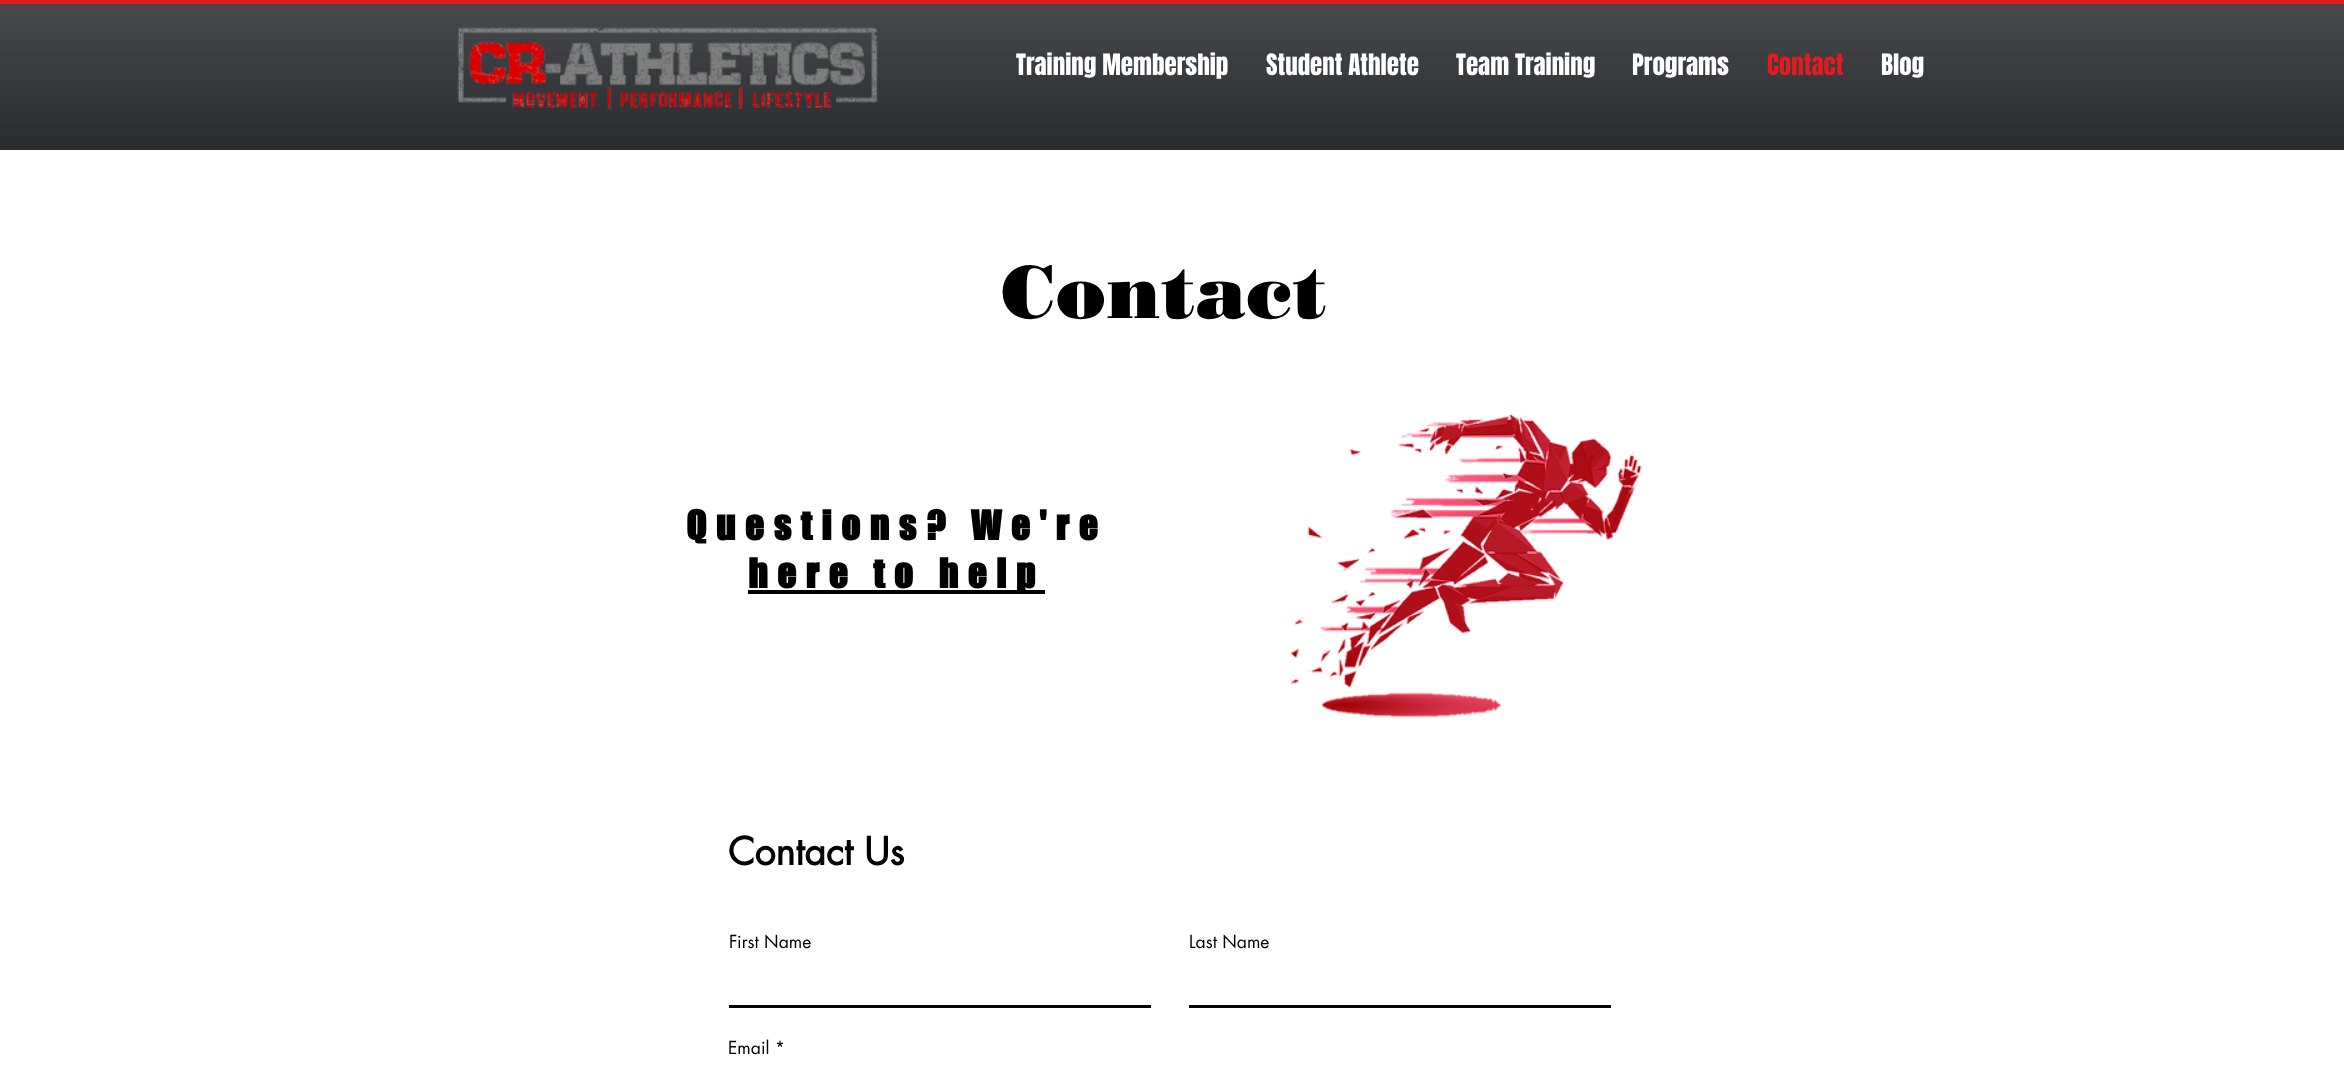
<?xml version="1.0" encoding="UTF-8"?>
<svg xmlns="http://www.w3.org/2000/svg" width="2344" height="1066">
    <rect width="100%" height="100%" fill="#FFFFFF"/>
    <rect x="0" y="4" width="2344" height="146" fill="#070A0E"/>
    <image x="0" y="4" width="2344" height="146" href="img_01.png"/>
    <rect x="0" y="0" width="2344" height="4" fill="#E21C21"/>
    <image x="457" y="27" width="421" height="82" href="img_02.png"/>
    <text x="1016" y="75" font-family="Anton" font-size="25" fill="#FFFFFF">Training Membership</text>
    <text x="1266" y="75" font-family="Anton" font-size="25" fill="#FFFFFF">Student Athlete</text>
    <text x="1456" y="75" font-family="Anton" font-size="25" fill="#FFFFFF">Team Training</text>
    <text x="1632" y="75" font-family="Anton" font-size="25" fill="#FFFFFF">Programs</text>
    <text x="1767" y="75" font-family="Anton" font-size="25" fill="#E21C21">Contact</text>
    <text x="1881" y="75" font-family="Anton" font-size="25" fill="#FFFFFF">Blog</text>
    <text x="1001" y="318" font-family="'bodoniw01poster'" font-size="75" font-weight="900" letter-spacing="0.75" fill="#000000">Contact</text>
    <text x="686" y="540" font-family="'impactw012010'" font-size="37.5" font-weight="700" letter-spacing="9.4" fill="#000000">Questions? We're</text>
    <rect x="748" y="590" width="297" height="4" fill="#000000"/>
    <text x="748" y="588" font-family="'impactw012010'" font-size="37.5" font-weight="700" letter-spacing="9.4" fill="#000000">here to help</text>
    <image x="1290" y="413" width="352" height="305" href="img_03.png"/>
    <text x="728" y="865" font-family="futura" font-size="37.5" font-weight="700" fill="#000000">Contact Us</text>
    <text x="729" y="948" font-family="futura" font-size="17.5" fill="#000000">First Name</text>
    <rect x="729" y="1005" width="422" height="3" fill="#000000"/>
    <text x="1189" y="948" font-family="futura" font-size="17.5" fill="#000000">Last Name</text>
    <rect x="1189" y="1005" width="422" height="3" fill="#000000"/>
    <text x="728" y="1054" font-family="futura" font-size="17.5" fill="#000000">Email *</text>
</svg>
